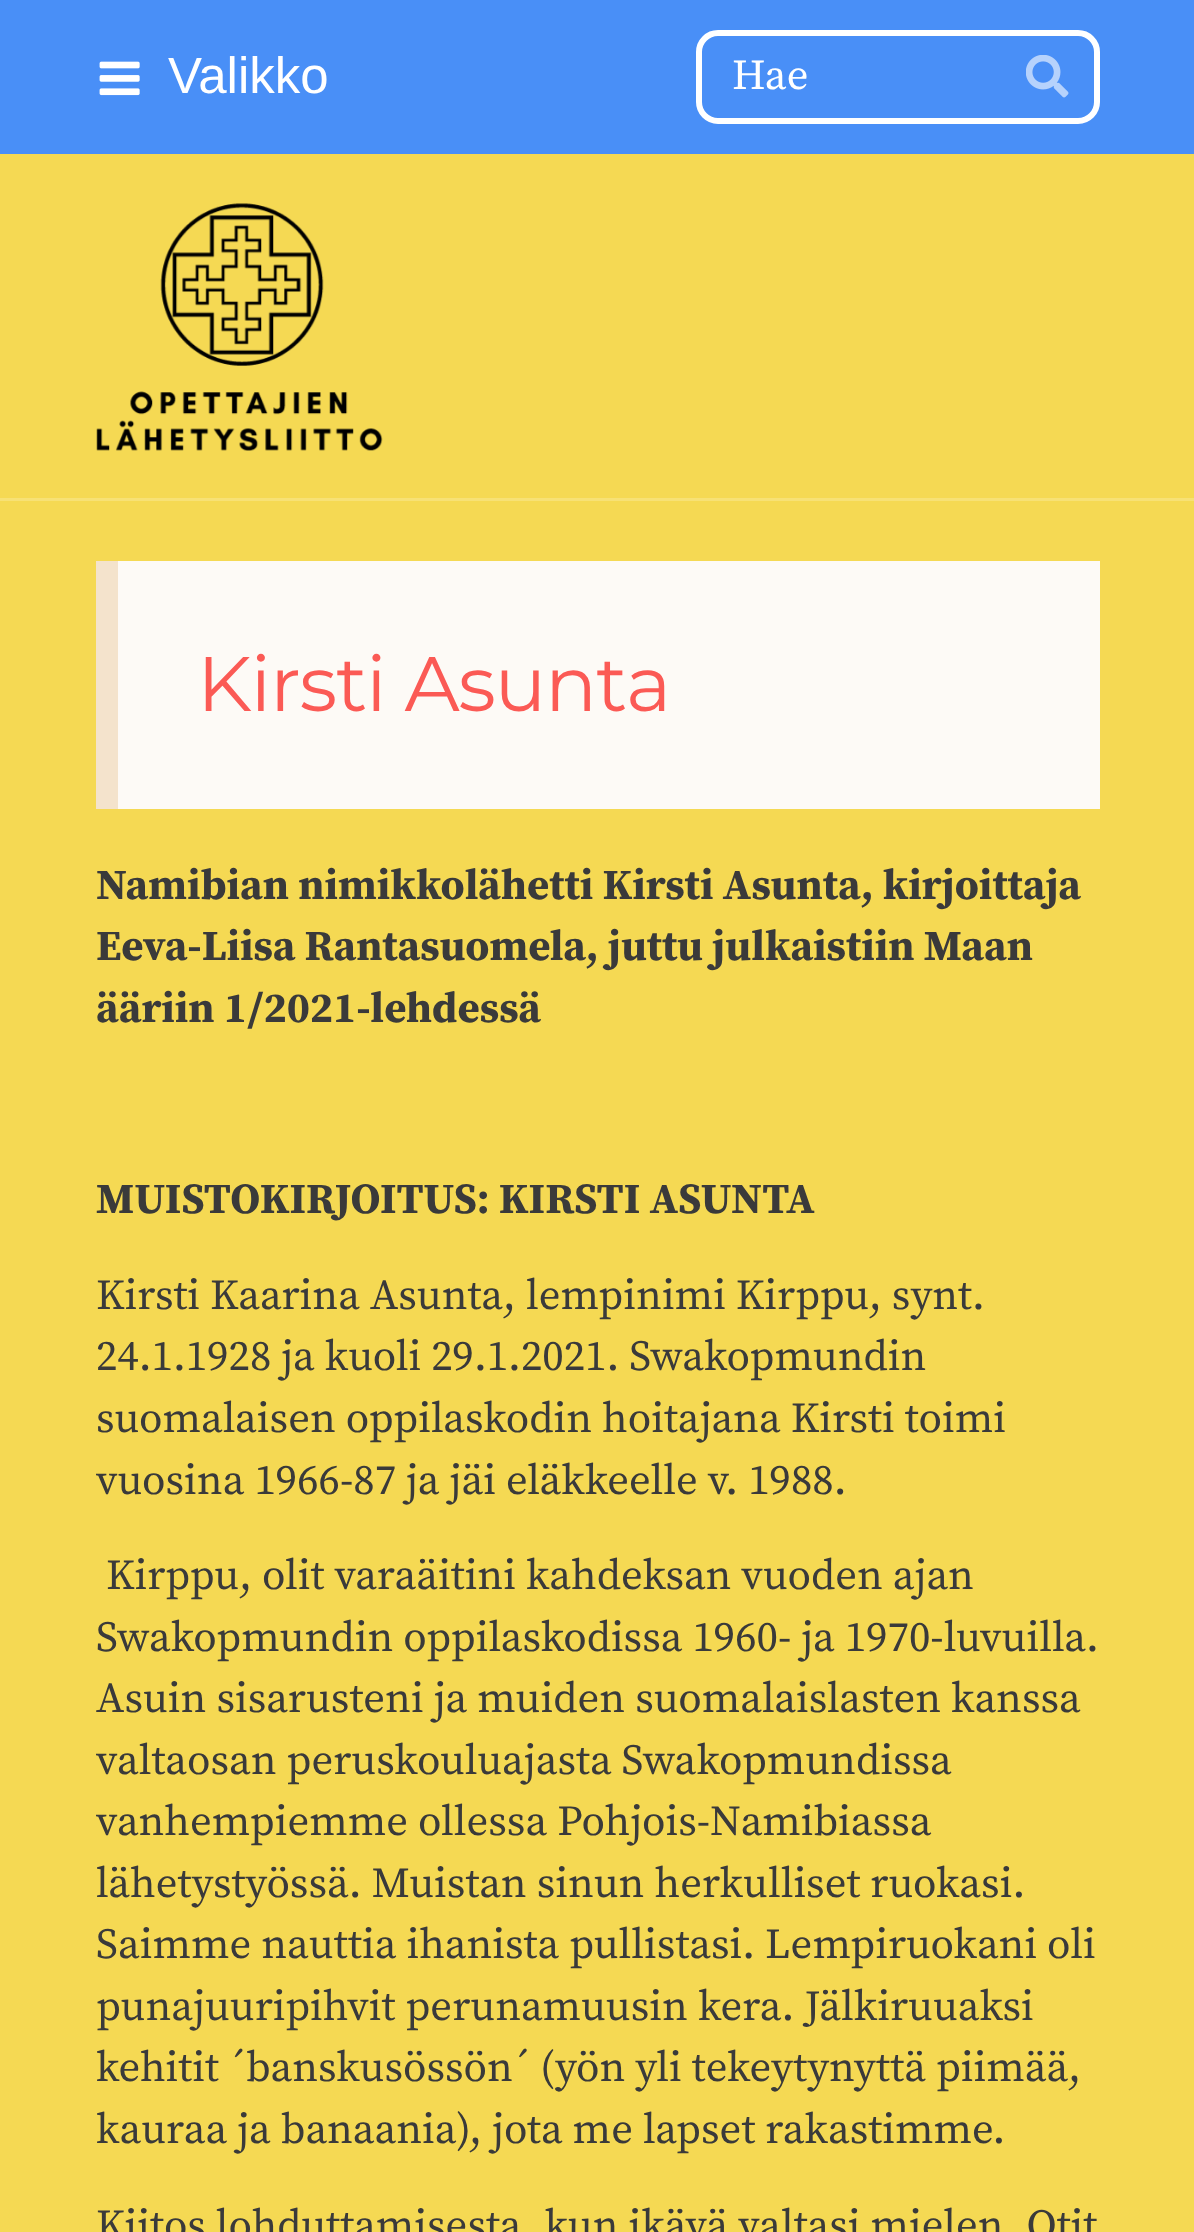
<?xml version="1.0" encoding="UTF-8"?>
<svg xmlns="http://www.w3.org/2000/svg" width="1194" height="2232">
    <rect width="100%" height="100%" fill="#F5D953"/>
    <rect x="0" y="0" width="1194" height="154" fill="#498FF7"/>
    <image x="99" y="61" width="41" height="35" href="img_01.png"/>
    <text x="168" y="93" font-family="Liberation Sans" font-size="51" fill="#FFFFFF">Valikko</text>
    <rect x="699" y="33" width="398" height="88" rx="19" fill="none" stroke="#FFFFFF" stroke-width="6"/>
    <text x="732" y="89" font-family="Source Serif Pro" font-size="42.75" fill="#FFFFFF">Hae</text>
    <image x="1026" y="55" width="43" height="43" href="img_02.png"/>
    <rect x="0" y="498" width="1194" height="3" fill="#F7E175"/>
    <image x="96" y="203" width="287" height="248" href="img_03.png"/>
    <rect x="118" y="561" width="982" height="248" fill="#FDFAF6"/>
    <rect x="96" y="561" width="22" height="248" fill="#F4E3CC"/>
    <text x="197" y="711" font-family="Montserrat" font-size="77" font-weight="100" letter-spacing="-1.2" fill="#FB5A55">Kirsti Asunta</text>
    <text font-family="Source Serif Pro" font-size="42.75" font-weight="700" fill="#3A3A3A">
        <tspan x="96" y="899">Namibian nimikkolähetti Kirsti Asunta, kirjoittaja</tspan>
        <tspan x="96" y="960">Eeva-Liisa Rantasuomela, juttu julkaistiin Maan</tspan>
        <tspan x="96" y="1022">ääriin 1/2021-lehdessä</tspan>
    </text>
    <text x="96" y="1213" font-family="Source Serif Pro" font-size="42.75" font-weight="700" fill="#3A3A3A">MUISTOKIRJOITUS: KIRSTI ASUNTA</text>
    <text font-family="Source Serif Pro" font-size="42.75" fill="#3A3A3A">
        <tspan x="96" y="1309">Kirsti Kaarina Asunta, lempinimi Kirppu, synt.</tspan>
        <tspan x="96" y="1370">24.1.1928 ja kuoli 29.1.2021. Swakopmundin</tspan>
        <tspan x="96" y="1432">suomalaisen oppilaskodin hoitajana Kirsti toimi</tspan>
        <tspan x="96" y="1494">vuosina 1966-87 ja jäi eläkkeelle v. 1988.</tspan>
    </text>
    <text x="106" y="1589" font-family="Source Serif Pro" font-size="42.75" fill="#3A3A3A">Kirppu, olit varaäitini kahdeksan vuoden ajan</text>
    <text font-family="Source Serif Pro" font-size="42.75" fill="#3A3A3A">
        <tspan x="96" y="1651">Swakopmundin oppilaskodissa 1960- ja 1970-luvuilla.</tspan>
        <tspan x="96" y="1712">Asuin sisarusteni ja muiden suomalaislasten kanssa</tspan>
        <tspan x="96" y="1774">valtaosan peruskouluajasta Swakopmundissa</tspan>
        <tspan x="96" y="1835">vanhempiemme ollessa Pohjois-Namibiassa</tspan>
        <tspan x="96" y="1897">lähetystyössä. Muistan sinun herkulliset ruokasi.</tspan>
        <tspan x="96" y="1958">Saimme nauttia ihanista pullistasi. Lempiruokani oli</tspan>
        <tspan x="96" y="2020">punajuuripihvit perunamuusin kera. Jälkiruuaksi</tspan>
        <tspan x="96" y="2081">kehitit ´banskusössön´ (yön yli tekeytynyttä piimää,</tspan>
        <tspan x="96" y="2143">kauraa ja banaania), jota me lapset rakastimme.</tspan>
    </text>
    <text x="96" y="2239" font-family="Source Serif Pro" font-size="42.75" fill="#3A3A3A">Kiitos lohduttamisesta, kun ikävä valtasi mielen. Otit</text>
</svg>
